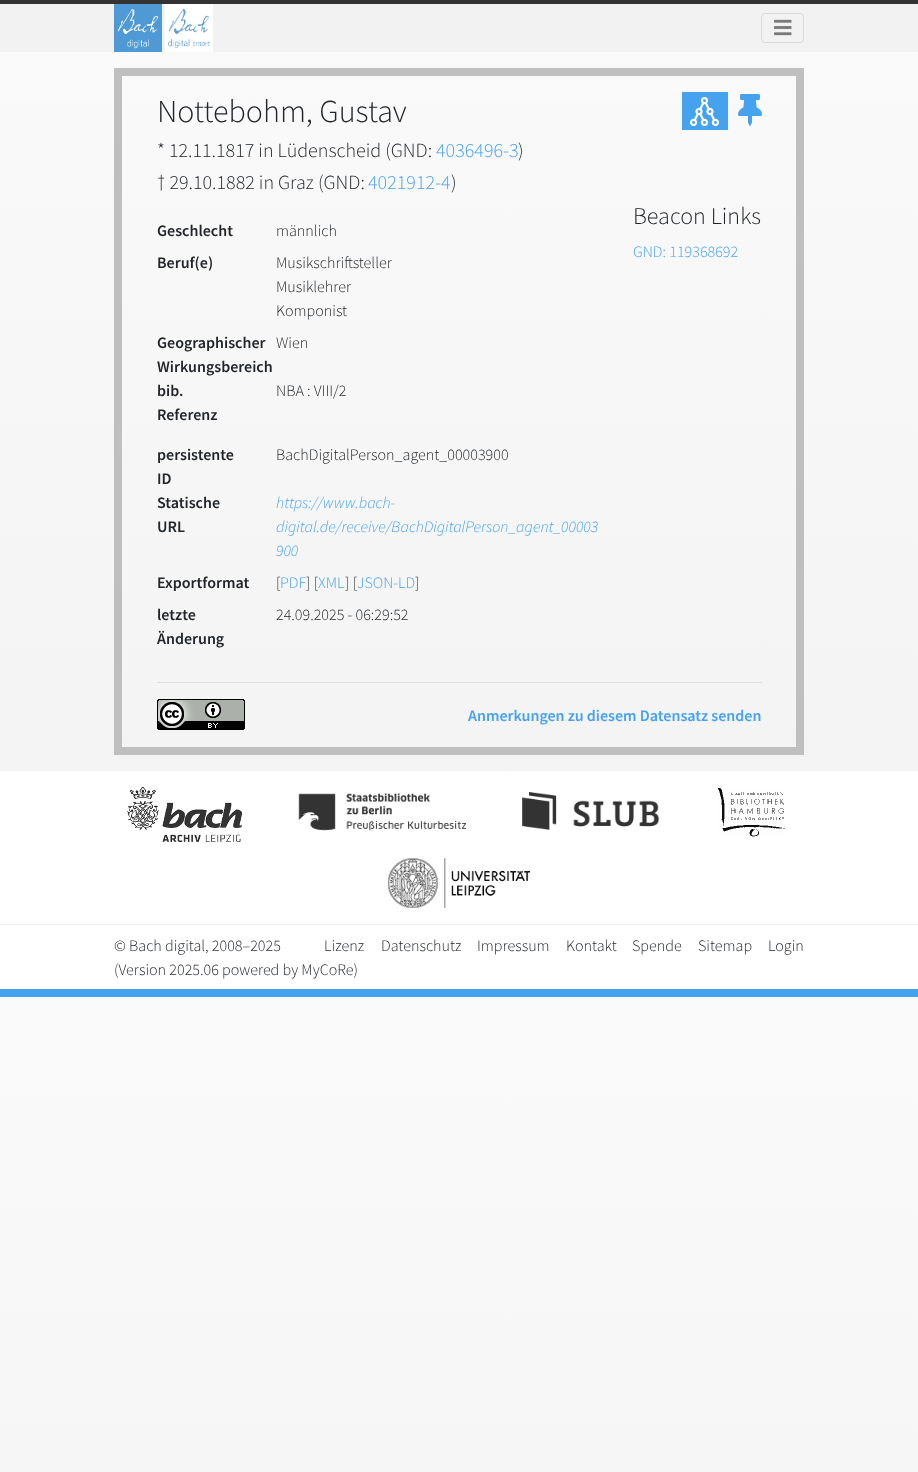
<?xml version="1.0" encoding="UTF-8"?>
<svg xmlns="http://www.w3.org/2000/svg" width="918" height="1472">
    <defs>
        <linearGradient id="g1" gradientUnits="userSpaceOnUse" x1="459" y1="0" x2="459" y2="997"><stop offset="0" stop-color="#FAFAFA"/><stop offset="1" stop-color="#F2F2F2"/></linearGradient>
        <linearGradient id="g2" gradientUnits="userSpaceOnUse" x1="459" y1="997" x2="459" y2="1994"><stop offset="0" stop-color="#FAFAFA"/><stop offset="1" stop-color="#F2F2F2"/></linearGradient>
    </defs>
    <rect width="100%" height="100%" fill="#FFFFFF"/>
    <rect x="0" y="52" width="918" height="719" fill="url(#g1)"/>
    <rect x="0" y="997" width="918" height="475" fill="url(#g2)"/>
    <rect x="0" y="0" width="918" height="4" fill="#333333"/>
    <rect x="0" y="4" width="918" height="48" fill="#F2F2F2"/>
    <image x="114" y="4" width="48" height="48" href="img_01.png"/>
    <rect x="165" y="4" width="48" height="48" fill="#FFFFFF"/>
    <image x="168" y="8" width="42" height="41" href="img_02.png"/>
    <rect x="761.5" y="13.5" width="42" height="29" rx="3.5" fill="none" stroke="#DADADA"/>
    <image x="774" y="19" width="18" height="17" href="img_03.png"/>
    <rect x="118" y="72" width="682" height="679" fill="none" stroke="#BFBFBF" stroke-width="8"/>
    <text x="157" y="122" font-family="Source Sans Pro" font-size="32" font-weight="300" fill="#212529">Nottebohm, Gustav</text>
    <rect x="682" y="92" width="46" height="38" fill="#45A2EF"/>
    <image x="689" y="96" width="31" height="31" href="img_04.png"/>
    <image x="738" y="94" width="24" height="32" href="img_05.png"/>
    <text x="157" y="157" font-family="Source Sans Pro" font-size="20" font-weight="300" fill="#212529">* 12.11.1817 in Lüdenscheid (GND:</text>
    <text x="436" y="157" font-family="Source Sans Pro" font-size="20" font-weight="300" fill="#45A2EF">4036496-3</text>
    <text x="518" y="157" font-family="Source Sans Pro" font-size="20" font-weight="300" fill="#212529">)</text>
    <text x="157" y="189" font-family="Source Sans Pro" font-size="20" font-weight="300" fill="#212529">† 29.10.1882 in Graz (GND:</text>
    <text x="368" y="189" font-family="Source Sans Pro" font-size="20" font-weight="300" fill="#45A2EF">4021912-4</text>
    <text x="451" y="189" font-family="Source Sans Pro" font-size="20" font-weight="300" fill="#212529">)</text>
    <text x="157" y="236" font-family="Source Sans Pro" font-size="16" font-weight="600" fill="#212529">Geschlecht</text>
    <text x="276" y="236" font-family="Source Sans Pro" font-size="16" font-weight="300" fill="#212529">männlich</text>
    <text x="157" y="268" font-family="Source Sans Pro" font-size="16" font-weight="600" fill="#212529">Beruf(e)</text>
    <text font-family="Source Sans Pro" font-size="16" font-weight="300" fill="#212529">
        <tspan x="276" y="268">Musikschriftsteller</tspan>
        <tspan x="276" y="292">Musiklehrer</tspan>
        <tspan x="276" y="316">Komponist</tspan>
    </text>
    <text font-family="Source Sans Pro" font-size="16" font-weight="600" fill="#212529">
        <tspan x="157" y="348">Geographischer</tspan>
        <tspan x="157" y="372">Wirkungsbereich</tspan>
    </text>
    <text x="276" y="348" font-family="Source Sans Pro" font-size="16" font-weight="300" fill="#212529">Wien</text>
    <text font-family="Source Sans Pro" font-size="16" font-weight="600" fill="#212529">
        <tspan x="157" y="396">bib.</tspan>
        <tspan x="157" y="420">Referenz</tspan>
    </text>
    <text x="276" y="396" font-family="Source Sans Pro" font-size="16" font-weight="300" fill="#212529">NBA : VIII/2</text>
    <text font-family="Source Sans Pro" font-size="16" font-weight="600" fill="#212529">
        <tspan x="157" y="460">persistente</tspan>
        <tspan x="157" y="484">ID</tspan>
    </text>
    <text x="276" y="460" font-family="Source Sans Pro" font-size="16" font-weight="300" fill="#212529">BachDigitalPerson_agent_00003900</text>
    <text font-family="Source Sans Pro" font-size="16" font-weight="600" fill="#212529">
        <tspan x="157" y="508">Statische</tspan>
        <tspan x="157" y="532">URL</tspan>
    </text>
    <text font-family="Source Sans Pro" font-size="16" font-weight="300" font-style="italic" fill="#45A2EF">
        <tspan x="276" y="508">https://www.bach-</tspan>
        <tspan x="276" y="532">digital.de/receive/BachDigitalPerson_agent_00003</tspan>
        <tspan x="276" y="556">900</tspan>
    </text>
    <text x="157" y="588" font-family="Source Sans Pro" font-size="16" font-weight="600" fill="#212529">Exportformat</text>
    <text x="276" y="588" font-family="Source Sans Pro" font-size="16" font-weight="300" fill="#212529">[</text>
    <text x="280" y="588" font-family="Source Sans Pro" font-size="16" font-weight="300" fill="#45A2EF">PDF</text>
    <text x="306" y="588" font-family="Source Sans Pro" font-size="16" font-weight="300" fill="#212529">] [</text>
    <text x="318" y="588" font-family="Source Sans Pro" font-size="16" font-weight="300" fill="#45A2EF">XML</text>
    <text x="345" y="588" font-family="Source Sans Pro" font-size="16" font-weight="300" fill="#212529">] [</text>
    <text x="357" y="588" font-family="Source Sans Pro" font-size="16" font-weight="300" fill="#45A2EF">JSON-LD</text>
    <text x="415" y="588" font-family="Source Sans Pro" font-size="16" font-weight="300" fill="#212529">]</text>
    <text font-family="Source Sans Pro" font-size="16" font-weight="600" fill="#212529">
        <tspan x="157" y="620">letzte</tspan>
        <tspan x="157" y="644">Änderung</tspan>
    </text>
    <text x="276" y="620" font-family="Source Sans Pro" font-size="16" font-weight="300" fill="#212529">24.09.2025 - 06:29:52</text>
    <text x="633" y="224" font-family="Source Sans Pro" font-size="24" font-weight="300" fill="#212529">Beacon Links</text>
    <text x="633" y="257" font-family="Source Sans Pro" font-size="16" font-weight="300" fill="#45A2EF">GND: 119368692</text>
    <rect x="157" y="682" width="605" height="1" fill="#DDDDDD"/>
    <image x="157" y="699" width="88" height="31" href="img_06.png"/>
    <text x="468" y="721" font-family="Source Sans Pro" font-size="16" font-weight="600" fill="#45A2EF">Anmerkungen zu diesem Datensatz senden</text>
    <rect x="0" y="989" width="918" height="8" fill="#45A2EF"/>
    <image x="127" y="787" width="115" height="55" href="img_07.png"/>
    <image x="298" y="792" width="169" height="39" href="img_08.png"/>
    <image x="522" y="792" width="138" height="38" href="img_09.png"/>
    <image x="718" y="788" width="67" height="49" href="img_10.png"/>
    <image x="388" y="858" width="142" height="50" href="img_11.png"/>
    <rect x="0" y="924" width="918" height="1" fill="#F2F2F2"/>
    <text font-family="Source Sans Pro" font-size="16" font-weight="300" fill="#212529">
        <tspan x="114" y="951">© Bach digital, 2008–2025</tspan>
        <tspan x="114" y="975">(Version 2025.06 powered by MyCoRe)</tspan>
    </text>
    <text x="381" y="951" font-family="Source Sans Pro" font-size="16" font-weight="300" fill="#212529">Datenschutz</text>
    <text x="566" y="951" font-family="Source Sans Pro" font-size="16" font-weight="300" fill="#212529">Kontakt</text>
    <text x="632" y="951" font-family="Source Sans Pro" font-size="16" font-weight="300" fill="#212529">Spende</text>
    <text x="324" y="951" font-family="Source Sans Pro" font-size="16" font-weight="300" fill="#212529">Lizenz</text>
    <text x="477" y="951" font-family="Source Sans Pro" font-size="16" font-weight="300" fill="#212529">Impressum</text>
    <text x="698" y="951" font-family="Source Sans Pro" font-size="16" font-weight="300" fill="#212529">Sitemap</text>
    <text x="768" y="951" font-family="Source Sans Pro" font-size="16" font-weight="300" fill="#212529">Login</text>
</svg>
